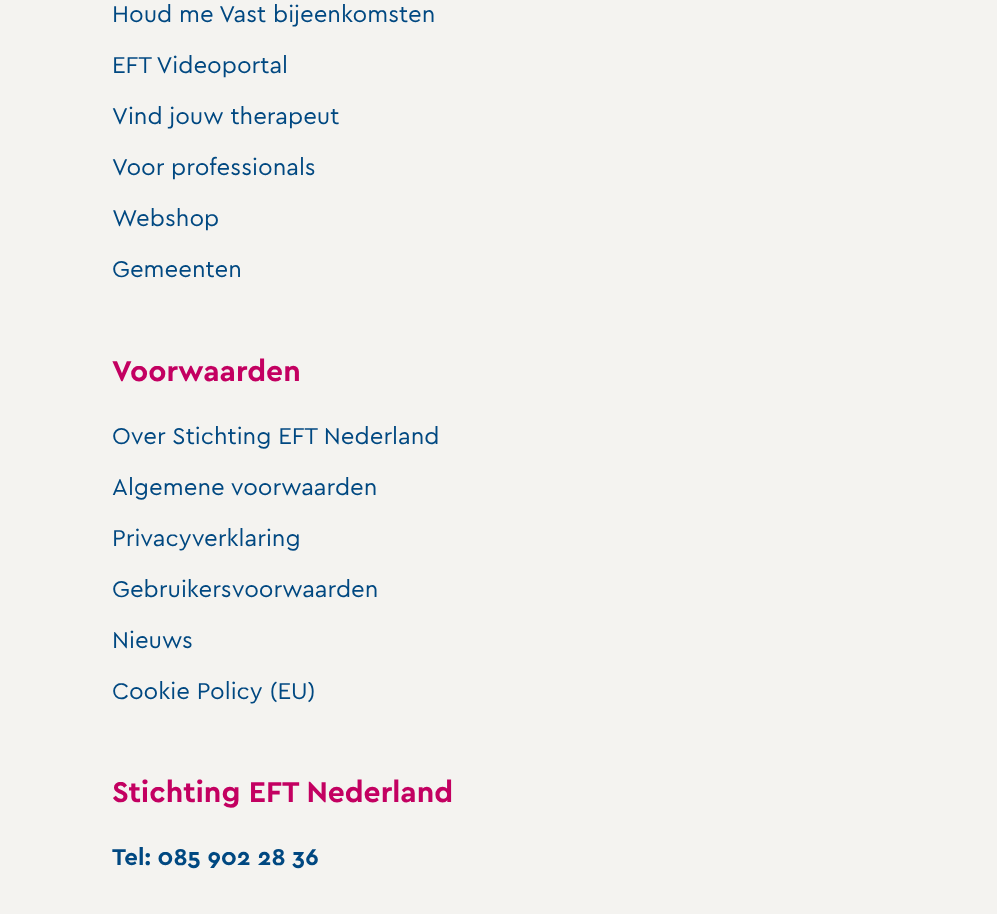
<?xml version="1.0" encoding="UTF-8"?>
<svg xmlns="http://www.w3.org/2000/svg" width="997" height="914">
    <rect width="100%" height="100%" fill="#F4F3F0"/>
    <text x="112" y="22" font-family="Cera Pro" font-size="24" fill="#004881">Houd me Vast bijeenkomsten</text>
    <text x="112" y="73" font-family="Cera Pro" font-size="24" fill="#004881">EFT Videoportal</text>
    <text x="112" y="124" font-family="Cera Pro" font-size="24" fill="#004881">Vind jouw therapeut</text>
    <text x="112" y="175" font-family="Cera Pro" font-size="24" fill="#004881">Voor professionals</text>
    <text x="112" y="226" font-family="Cera Pro" font-size="24" fill="#004881">Webshop</text>
    <text x="112" y="277" font-family="Cera Pro" font-size="24" fill="#004881">Gemeenten</text>
    <text x="112" y="381" font-family="Cera Pro" font-size="30" font-weight="700" fill="#C30061">Voorwaarden</text>
    <text x="112" y="444" font-family="Cera Pro" font-size="24" fill="#004881">Over Stichting EFT Nederland</text>
    <text x="112" y="495" font-family="Cera Pro" font-size="24" fill="#004881">Algemene voorwaarden</text>
    <text x="112" y="546" font-family="Cera Pro" font-size="24" fill="#004881">Privacyverklaring</text>
    <text x="112" y="597" font-family="Cera Pro" font-size="24" fill="#004881">Gebruikersvoorwaarden</text>
    <text x="112" y="648" font-family="Cera Pro" font-size="24" fill="#004881">Nieuws</text>
    <text x="112" y="699" font-family="Cera Pro" font-size="24" fill="#004881">Cookie Policy (EU)</text>
    <text x="112" y="802" font-family="Cera Pro" font-size="30" font-weight="700" fill="#C30061">Stichting EFT Nederland</text>
    <text x="112" y="865" font-family="Cera Pro" font-size="24" font-weight="700" fill="#004881">Tel: 085 902 28 36</text>
</svg>
